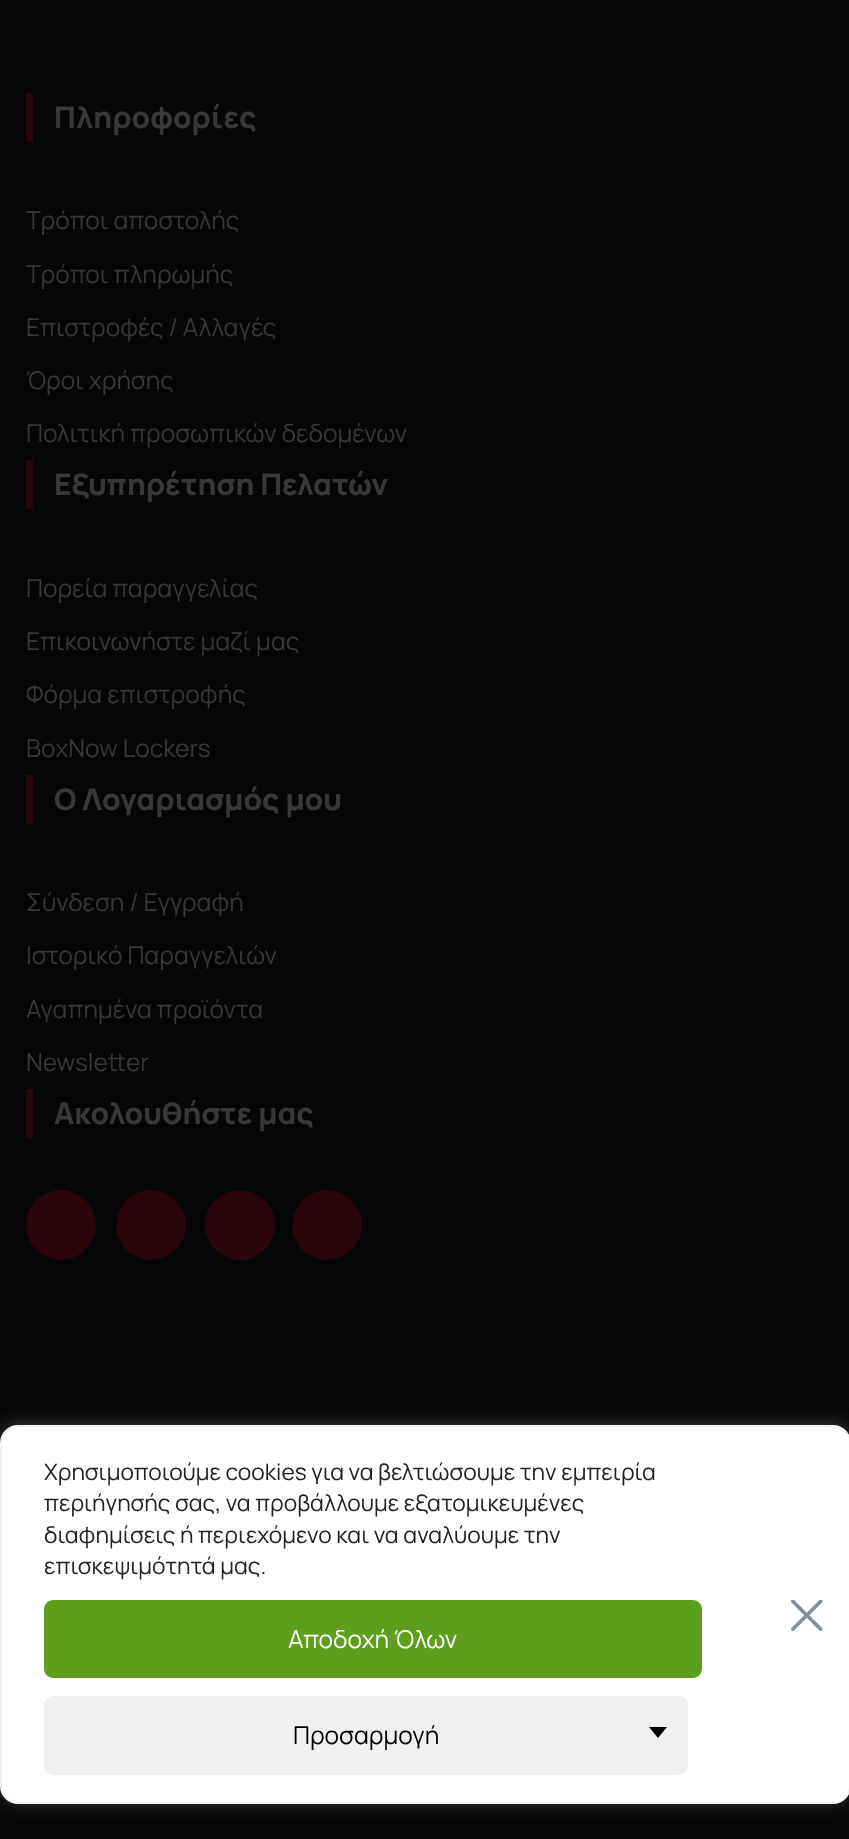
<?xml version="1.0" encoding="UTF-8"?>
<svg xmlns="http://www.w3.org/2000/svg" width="849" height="1839">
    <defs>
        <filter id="blur1" x="-50%" y="-200%" width="200%" height="500%"><feGaussianBlur stdDeviation="9"/></filter>
    </defs>
    <rect width="100%" height="100%" fill="#050607"/>
    <rect x="26" y="93" width="7" height="49" fill="#2A050C"/>
    <text x="54" y="128" font-family="Manrope" font-size="29.75" font-weight="800" fill="#383838">Πληροφορίες</text>
    <text x="26" y="229" font-family="Manrope" font-size="24.5" fill="#383838">Τρόποι αποστολής</text>
    <text x="26" y="283" font-family="Manrope" font-size="24.5" fill="#383838">Τρόποι πληρωμής</text>
    <text x="26" y="336" font-family="Manrope" font-size="24.5" fill="#383838">Επιστροφές / Αλλαγές</text>
    <text x="26" y="389" font-family="Manrope" font-size="24.5" fill="#383838">Όροι χρήσης</text>
    <text x="26" y="442" font-family="Manrope" font-size="24.5" fill="#383838">Πολιτική προσωπικών δεδομένων</text>
    <rect x="26" y="460" width="7" height="49" fill="#2A050C"/>
    <text x="54" y="495" font-family="Manrope" font-size="29.75" font-weight="800" fill="#383838">Εξυπηρέτηση Πελατών</text>
    <text x="26" y="597" font-family="Manrope" font-size="24.5" fill="#383838">Πορεία παραγγελίας</text>
    <text x="26" y="650" font-family="Manrope" font-size="24.5" fill="#383838">Επικοινωνήστε μαζί μας</text>
    <text x="26" y="703" font-family="Manrope" font-size="24.5" fill="#383838">Φόρμα επιστροφής</text>
    <text x="26" y="757" font-family="Manrope" font-size="24.5" fill="#383838">BoxNow Lockers</text>
    <rect x="26" y="775" width="7" height="49" fill="#2A050C"/>
    <text x="54" y="810" font-family="Manrope" font-size="29.75" font-weight="800" fill="#383838">Ο Λογαριασμός μου</text>
    <text x="26" y="911" font-family="Manrope" font-size="24.5" fill="#383838">Σύνδεση / Εγγραφή</text>
    <text x="26" y="964" font-family="Manrope" font-size="24.5" fill="#383838">Ιστορικό Παραγγελιών</text>
    <text x="26" y="1018" font-family="Manrope" font-size="24.5" fill="#383838">Αγαπημένα προϊόντα</text>
    <text x="26" y="1071" font-family="Manrope" font-size="24.5" fill="#383838">Newsletter</text>
    <rect x="26" y="1089" width="7" height="49" fill="#2A050C"/>
    <text x="54" y="1124" font-family="Manrope" font-size="29.75" font-weight="800" fill="#383838">Ακολουθήστε μας</text>
    <circle cx="61" cy="1225" r="35" fill="#2A050C"/>
    <circle cx="151" cy="1225" r="35" fill="#2A050C"/>
    <circle cx="240" cy="1225" r="35" fill="#2A050C"/>
    <circle cx="327" cy="1225" r="35" fill="#2A050C"/>
    <rect x="0" y="1423" width="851" height="380" rx="18" fill="#ACABAB" fill-opacity="0.3" filter="url(#blur1)"/>
    <rect x="1" y="1426" width="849" height="377" rx="17" fill="#FFFFFF" stroke="#F4F4F4" stroke-width="2"/>
    <text font-family="Manrope" font-size="22.75" fill="#212121">
        <tspan x="44" y="1480">Χρησιμοποιούμε cookies για να βελτιώσουμε την εμπειρία</tspan>
        <tspan x="44" y="1511">περιήγησής σας, να προβάλλουμε εξατομικευμένες</tspan>
        <tspan x="44" y="1543">διαφημίσεις ή περιεχόμενο και να αναλύουμε την</tspan>
        <tspan x="44" y="1574">επισκεψιμότητά μας.</tspan>
    </text>
    <rect x="44" y="1600" width="658" height="78" rx="9" fill="#5C9F1D"/>
    <text x="288" y="1648" font-family="Manrope" font-size="24.5" fill="#FFFFFF">Αποδοχή Όλων</text>
    <rect x="44" y="1696" width="644" height="79" rx="9" fill="#F0F0F0"/>
    <text x="293" y="1744" font-family="Manrope" font-size="24.5" fill="#000000">Προσαρμογή</text>
    <path d="M 649 1727 H 667 L 658 1738 Z" fill="#000000"/>
    <image x="791" y="1600" width="32" height="31" href="img_01.png"/>
</svg>
